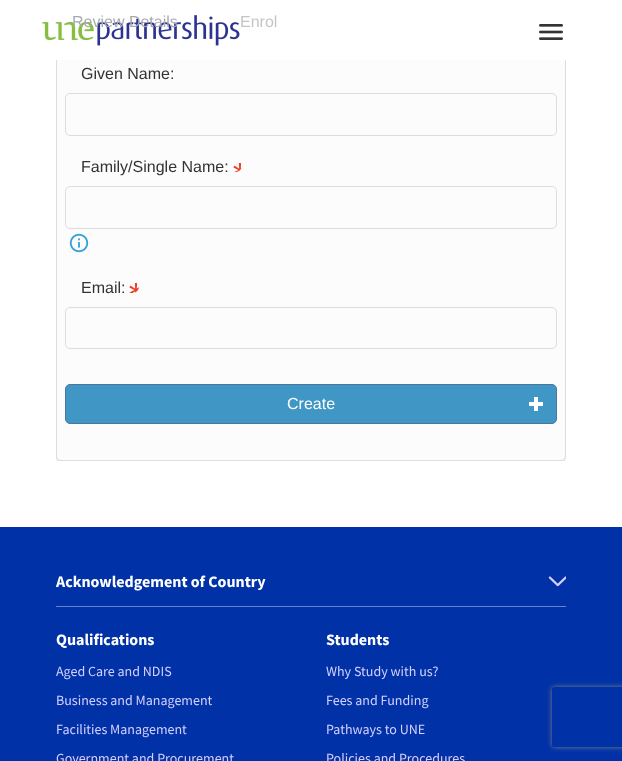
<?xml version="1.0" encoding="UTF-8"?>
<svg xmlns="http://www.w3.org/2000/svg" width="622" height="761">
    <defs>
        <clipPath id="clip1"><rect x="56" y="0" width="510" height="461"/></clipPath>
        <filter id="blur1" x="-50%" y="-200%" width="200%" height="500%"><feGaussianBlur stdDeviation="1.5"/></filter>
        <clipPath id="clip2"><path d="M 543 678 H 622 V 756 H 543 Z M 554 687 H 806 C 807 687 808 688 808 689 V 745 C 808 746 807 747 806 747 H 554 C 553 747 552 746 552 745 V 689 C 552 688 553 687 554 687 Z" clip-rule="evenodd"/></clipPath>
        <filter id="blur2" x="-50%" y="-200%" width="200%" height="500%"><feGaussianBlur stdDeviation="2.5"/></filter>
    </defs>
    <rect width="100%" height="100%" fill="#FFFFFF"/>
    <g clip-path="url(#clip1)">
        <rect x="56" y="47" width="510" height="415" rx="5" fill="#000000" fill-opacity="0.15" filter="url(#blur1)"/>
    </g>
    <rect x="56.5" y="46.5" width="509" height="414" rx="4.5" fill="#FCFCFC" stroke="#DDDDDD"/>
    <rect x="56" y="45" width="510" height="15" fill="#FFFFFF"/>
    <image x="42" y="15" width="198" height="31" href="img_01.png"/>
    <image x="539" y="24" width="24" height="16" href="img_02.png"/>
    <text x="72" y="27" font-family="Liberation Sans" font-size="16" fill="#A7A9B1">Review Details</text>
    <text x="240" y="27" font-family="Liberation Sans" font-size="16" fill="#C5C5C5">Enrol</text>
    <text x="81" y="79" font-family="Liberation Sans" font-size="16" fill="#333333">Given Name:</text>
    <rect x="65.5" y="93.5" width="491" height="42" rx="4.5" fill="none" stroke="#DDDDDD"/>
    <text x="81" y="172" font-family="Liberation Sans" font-size="16" fill="#333333">Family/Single Name:</text>
    <image x="233" y="163" width="9" height="9" href="img_03.png"/>
    <rect x="65.5" y="186.5" width="491" height="42" rx="4.5" fill="none" stroke="#DDDDDD"/>
    <image x="69" y="233" width="20" height="20" href="img_04.png"/>
    <text x="81" y="293" font-family="Liberation Sans" font-size="16" fill="#333333">Email:</text>
    <image x="129" y="283" width="10" height="10" href="img_05.png"/>
    <rect x="65.5" y="307.5" width="491" height="41" rx="4.5" fill="none" stroke="#DDDDDD"/>
    <rect x="65.5" y="384.5" width="491" height="39" rx="4.5" fill="#4097C5" stroke="#4C769C"/>
    <text x="287" y="409" font-family="Liberation Sans" font-size="16" fill="#FFFFFF">Create</text>
    <image x="529" y="397" width="14" height="14" href="img_06.png"/>
    <rect x="0" y="527" width="622" height="234" fill="#0031A7"/>
    <rect x="56" y="606" width="510" height="1" fill="#6A81D3"/>
    <text x="56" y="587" font-family="Source Sans Pro" font-size="16" font-weight="700" fill="#FFFFFF">Acknowledgement of Country</text>
    <image x="548" y="576" width="18" height="11" href="img_07.png"/>
    <text x="56" y="645" font-family="Source Sans Pro" font-size="16" font-weight="700" fill="#FFFFFF">Qualifications</text>
    <text x="56" y="676" font-family="Source Sans Pro" font-size="14" fill="#D4D0FF">Aged Care and NDIS</text>
    <text x="56" y="705" font-family="Source Sans Pro" font-size="14" fill="#D4D0FF">Business and Management</text>
    <text x="56" y="734" font-family="Source Sans Pro" font-size="14" fill="#D4D0FF">Facilities Management</text>
    <text x="56" y="763" font-family="Source Sans Pro" font-size="14" fill="#D4D0FF">Government and Procurement</text>
    <text x="326" y="645" font-family="Source Sans Pro" font-size="16" font-weight="700" fill="#FFFFFF">Students</text>
    <text x="326" y="676" font-family="Source Sans Pro" font-size="14" fill="#D4D0FF">Why Study with us?</text>
    <text x="326" y="705" font-family="Source Sans Pro" font-size="14" fill="#D4D0FF">Fees and Funding</text>
    <text x="326" y="734" font-family="Source Sans Pro" font-size="14" fill="#D4D0FF">Pathways to UNE</text>
    <text x="326" y="763" font-family="Source Sans Pro" font-size="14" fill="#D4D0FF">Policies and Procedures</text>
    <g clip-path="url(#clip2)">
        <rect x="552" y="687" width="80" height="60" rx="2" fill="#808080" filter="url(#blur2)"/>
    </g>
</svg>
